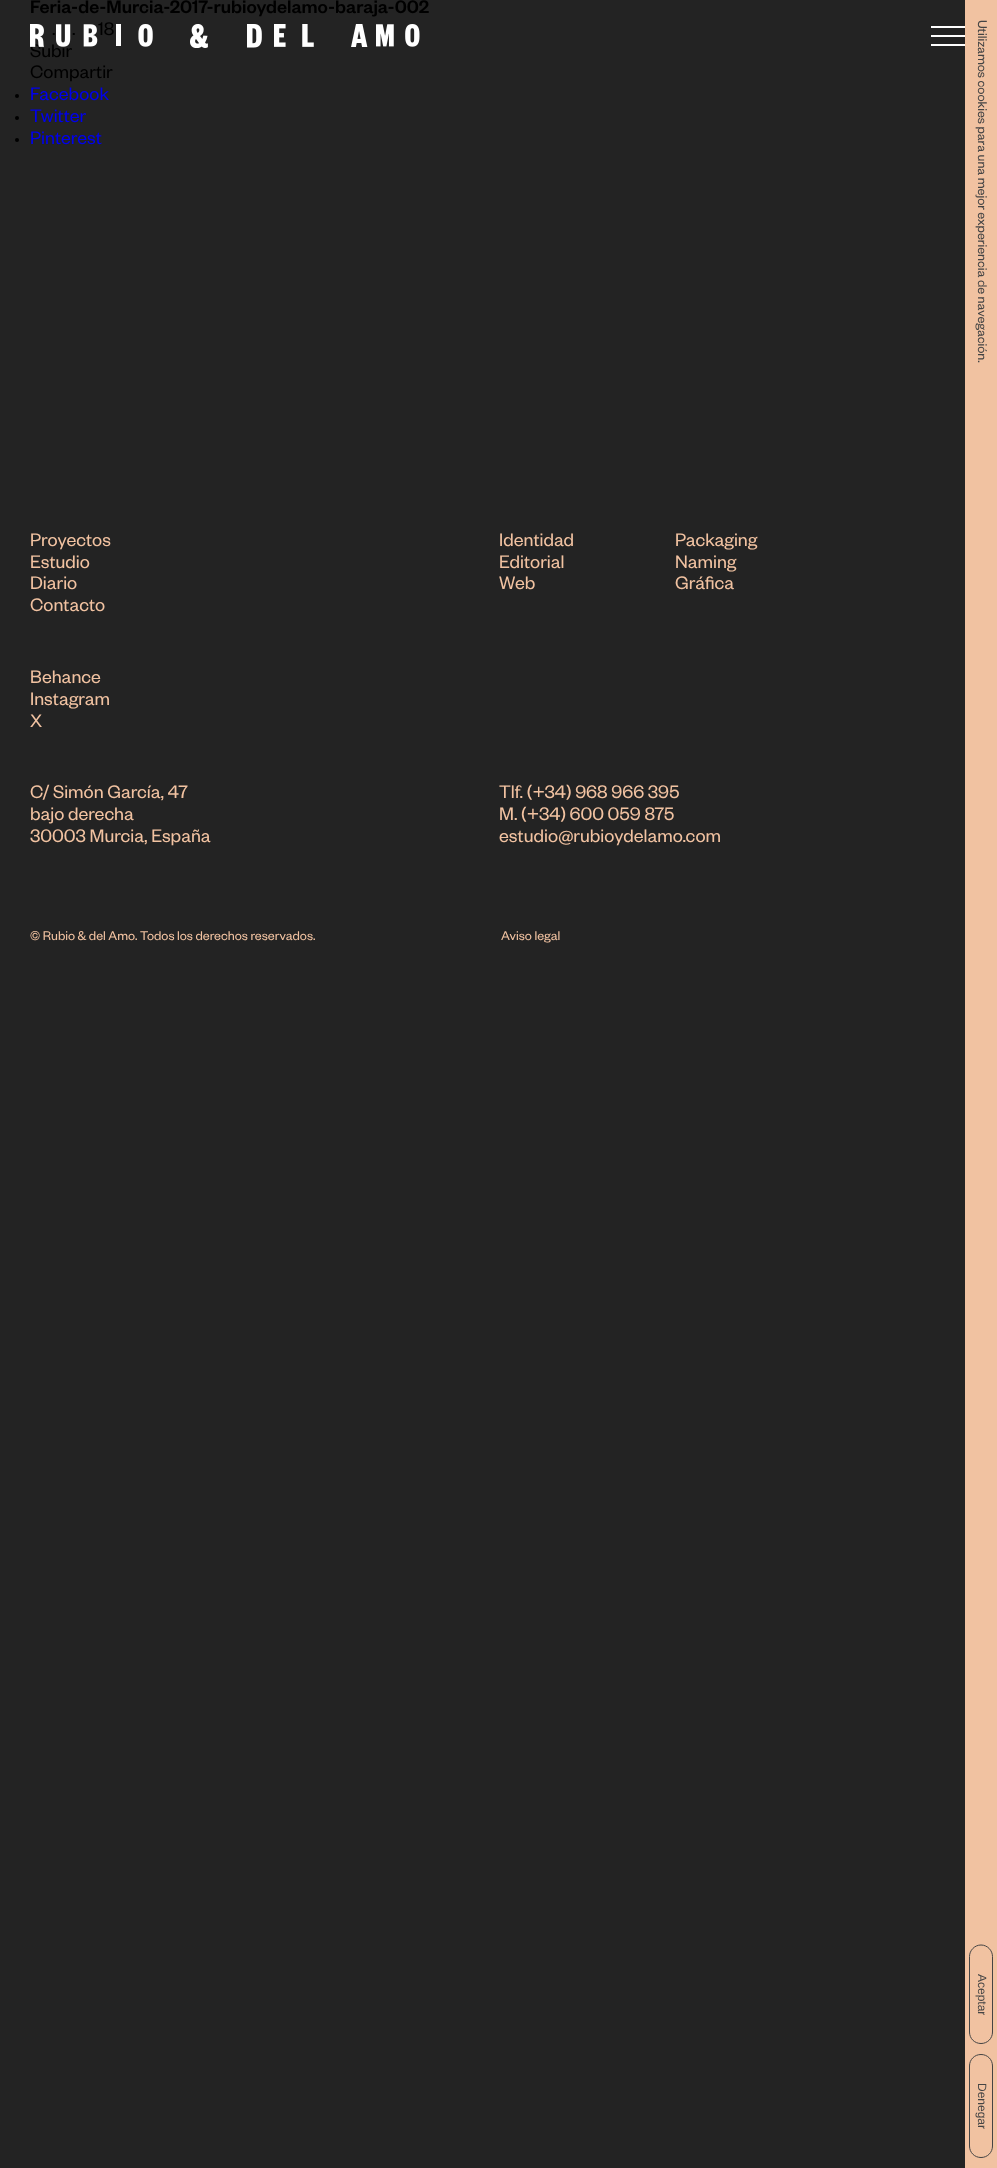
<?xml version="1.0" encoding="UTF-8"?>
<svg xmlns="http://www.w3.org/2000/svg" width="997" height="2168">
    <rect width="100%" height="100%" fill="#232323"/>
    <text x="30" y="13" font-family="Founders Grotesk" font-size="20" font-weight="500" fill="#000000">Feria-de-Murcia-2017-rubioydelamo-baraja-002</text>
    <text x="52" y="35" font-family="Founders Grotesk" font-size="20" fill="#000000">.</text>
    <text x="72" y="35" font-family="Founders Grotesk" font-size="20" fill="#000000">.</text>
    <text x="98" y="35" font-family="Founders Grotesk" font-size="20" fill="#000000">18</text>
    <text font-family="Founders Grotesk" font-size="20" fill="#000000">
        <tspan x="30" y="57">Subir</tspan>
        <tspan x="30" y="78">Compartir</tspan>
    </text>
    <circle cx="17" cy="96" r="2" fill="#000000"/>
    <text x="30" y="100" font-family="Founders Grotesk" font-size="20" fill="#0000EE">Facebook</text>
    <circle cx="17" cy="118" r="2" fill="#000000"/>
    <text x="30" y="122" font-family="Founders Grotesk" font-size="20" fill="#0000EE">Twitter</text>
    <circle cx="17" cy="140" r="2" fill="#000000"/>
    <text x="30" y="144" font-family="Founders Grotesk" font-size="20" fill="#0000EE">Pinterest</text>
    <text font-family="Founders Grotesk" font-size="20" fill="#F1C2A1">
        <tspan x="30" y="546">Proyectos</tspan>
        <tspan x="30" y="568">Estudio</tspan>
        <tspan x="30" y="589">Diario</tspan>
        <tspan x="30" y="611">Contacto</tspan>
    </text>
    <text x="499" y="546" font-family="Founders Grotesk" font-size="20" fill="#F1C2A1">Identidad</text>
    <text x="675" y="546" font-family="Founders Grotesk" font-size="20" fill="#F1C2A1">Packaging</text>
    <text x="499" y="568" font-family="Founders Grotesk" font-size="20" fill="#F1C2A1">Editorial</text>
    <text x="675" y="568" font-family="Founders Grotesk" font-size="20" fill="#F1C2A1">Naming</text>
    <text x="499" y="589" font-family="Founders Grotesk" font-size="20" fill="#F1C2A1">Web</text>
    <text x="675" y="589" font-family="Founders Grotesk" font-size="20" fill="#F1C2A1">Gráfica</text>
    <text font-family="Founders Grotesk" font-size="20" fill="#F1C2A1">
        <tspan x="30" y="683">Behance</tspan>
        <tspan x="30" y="705">Instagram</tspan>
        <tspan x="30" y="727">X</tspan>
    </text>
    <text font-family="Founders Grotesk" font-size="20" fill="#F1C2A1">
        <tspan x="30" y="798">C/ Simón García, 47</tspan>
        <tspan x="30" y="820">bajo derecha</tspan>
        <tspan x="30" y="842">30003 Murcia, España</tspan>
    </text>
    <text font-family="Founders Grotesk" font-size="20" fill="#F1C2A1">
        <tspan x="499" y="798">Tlf. (+34) 968 966 395</tspan>
        <tspan x="499" y="820">M. (+34) 600 059 875</tspan>
        <tspan x="499" y="842">estudio@rubioydelamo.com</tspan>
    </text>
    <text x="30" y="940" font-family="Founders Grotesk" font-size="14" fill="#F1C2A1">© Rubio &amp; del Amo. Todos los derechos reservados.</text>
    <text x="501" y="940" font-family="Founders Grotesk" font-size="14" fill="#F1C2A1">Aviso legal</text>
    <rect x="931" y="35" width="36" height="2" fill="#FFFFFF"/>
    <rect x="931" y="26" width="36" height="2" fill="#FFFFFF"/>
    <rect x="931" y="44" width="36" height="2" fill="#FFFFFF"/>
    <rect x="965" y="0" width="32" height="2168" fill="#F1C2A1"/>
    <text x="978" y="20" transform="rotate(90 978 20)" font-family="Founders Grotesk" font-size="14" fill="#444444">Utilizamos cookies para una mejor experiencia de navegación.</text>
    <path d="M 992.5 1956.5 V 2032 C 992.5 2038.5 987.5 2043.5 981 2043.5 C 974.5 2043.5 969.5 2038.5 969.5 2032 V 1956.5 C 969.5 1950.5 974.5 1945 981 1945 C 987.5 1945 992.5 1950.5 992.5 1956.5 Z" fill="none" stroke="#444444"/>
    <text x="978" y="1974" transform="rotate(90 978 1974)" font-family="Liberation Sans" font-size="12" fill="#444444">Aceptar</text>
    <path d="M 992.5 2066 V 2146 C 992.5 2152.5 987.5 2157.5 981 2157.5 C 974.5 2157.5 969.5 2152.5 969.5 2146 V 2066 C 969.5 2059.5 974.5 2054.5 981 2054.5 C 987.5 2054.5 992.5 2059.5 992.5 2066 Z" fill="none" stroke="#444444"/>
    <text x="978" y="2083" transform="rotate(90 978 2083)" font-family="Liberation Sans" font-size="12" fill="#444444">Denegar</text>
    <image x="30" y="24" width="14" height="23" href="img_01.png"/>
    <image x="56" y="24" width="97" height="23" href="img_02.png"/>
    <image x="190" y="24" width="18" height="24" href="img_03.png"/>
    <image x="247" y="24" width="15" height="24" href="img_04.png"/>
    <image x="274" y="24" width="40" height="23" href="img_05.png"/>
    <image x="351" y="24" width="17" height="23" href="img_06.png"/>
    <image x="376" y="24" width="44" height="23" href="img_07.png"/>
</svg>
